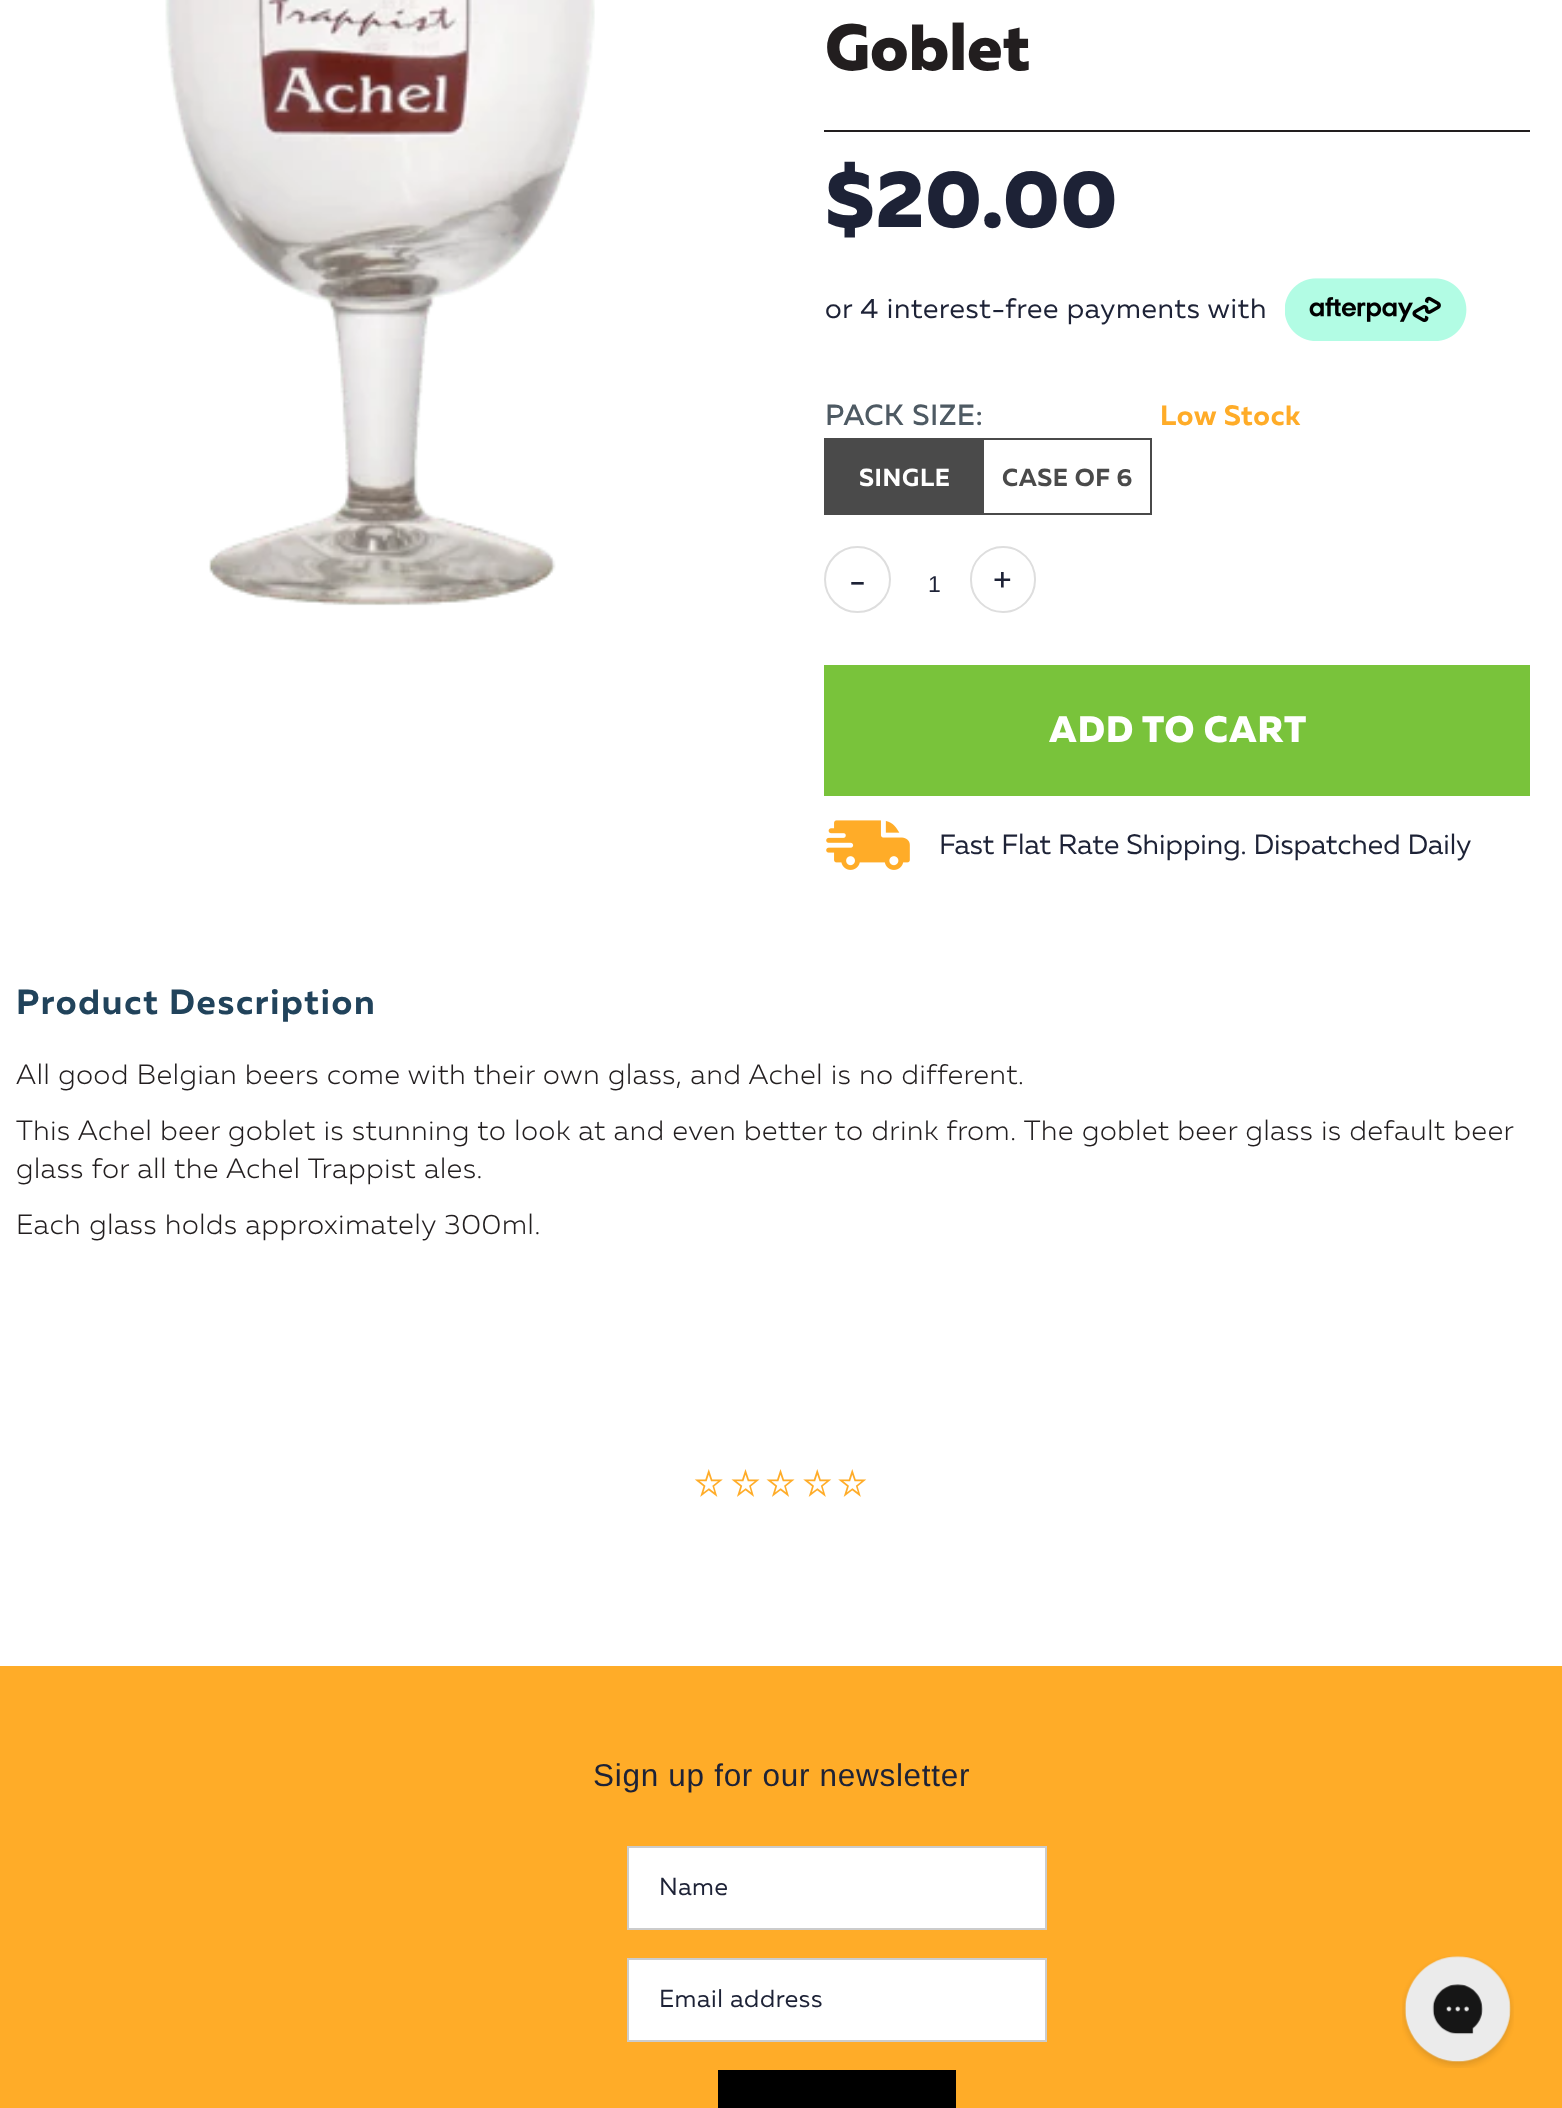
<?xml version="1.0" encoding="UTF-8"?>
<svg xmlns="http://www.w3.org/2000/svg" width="1562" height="2108">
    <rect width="100%" height="100%" fill="#FFFFFF"/>
    <image x="165" y="0" width="430" height="606" href="img_01.png"/>
    <rect x="824" y="130" width="706" height="2" fill="#221E1F"/>
    <text x="825" y="70" font-family="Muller" font-size="65" font-weight="800" fill="#221E1F">Goblet</text>
    <text x="825" y="227" font-family="Muller" font-size="80.5" font-weight="800" letter-spacing="0.7" fill="#1D2236">$20.00</text>
    <text x="825" y="318" font-family="Muller" font-size="28" letter-spacing="0.7" fill="#1D2236">or 4 interest-free payments with</text>
    <image x="1285" y="278" width="182" height="63" href="img_02.png"/>
    <text x="825" y="425" font-family="'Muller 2'" font-size="28" font-weight="700" letter-spacing="1.4" fill="#4E5A63">PACK SIZE:</text>
    <text x="1160" y="425" font-family="Muller" font-size="28" font-weight="700" letter-spacing="0.7" fill="#FFAC28">Low Stock</text>
    <rect x="824" y="438" width="158" height="77" fill="#4A4A4A"/>
    <text x="859" y="486" font-family="Muller" font-size="24.5" font-weight="700" letter-spacing="0.7" fill="#FFFFFF">SINGLE</text>
    <rect x="983" y="439" width="168" height="75" fill="none" stroke="#4A4A4A" stroke-width="2"/>
    <text x="1002" y="486" font-family="Muller" font-size="24.5" font-weight="700" letter-spacing="0.7" fill="#4A4A4A">CASE OF 6</text>
    <circle cx="857.5" cy="579.5" r="32.5" fill="none" stroke="#DEDEDE" stroke-width="2"/>
    <text x="849" y="592" font-family="Muller" font-size="35" letter-spacing="1" fill="#1D2236">-</text>
    <text x="928" y="592" font-family="Liberation Sans" font-size="23" fill="#1D2236">1</text>
    <rect x="971" y="547" width="64" height="65" rx="32" fill="none" stroke="#DEDEDE" stroke-width="2"/>
    <text x="993" y="592" font-family="Muller" font-size="35" letter-spacing="1" fill="#1D2236">+</text>
    <rect x="824" y="665" width="706" height="131" fill="#79C33B"/>
    <text x="1049" y="742" font-family="Muller" font-size="36.75" font-weight="800" letter-spacing="1" fill="#FFFFFF">ADD TO CART</text>
    <image x="826" y="820" width="84" height="50" href="img_03.png"/>
    <text x="939" y="854" font-family="Muller" font-size="28" fill="#1D2236">Fast Flat Rate Shipping. Dispatched Daily</text>
    <text x="16" y="1014" font-family="Muller" font-size="35" font-weight="700" letter-spacing="1.75" fill="#21435B">Product Description</text>
    <text x="16" y="1084" font-family="Muller" font-size="28" font-weight="300" letter-spacing="0.7" fill="#221E1F">All good Belgian beers come with their own glass, and Achel is no different.</text>
    <text font-family="Muller" font-size="28" font-weight="300" letter-spacing="0.7" fill="#221E1F">
        <tspan x="16" y="1140">This Achel beer goblet is stunning to look at and even better to drink from. The goblet beer glass is default beer</tspan>
        <tspan x="16" y="1178">glass for all the Achel Trappist ales.</tspan>
    </text>
    <text x="16" y="1234" font-family="Muller" font-size="28" font-weight="300" letter-spacing="0.7" fill="#221E1F">Each glass holds approximately 300ml.</text>
    <image x="694" y="1469" width="29" height="28" href="img_04.png"/>
    <image x="731" y="1469" width="29" height="28" href="img_05.png"/>
    <image x="766" y="1469" width="29" height="28" href="img_05.png"/>
    <image x="803" y="1469" width="29" height="28" href="img_06.png"/>
    <image x="838" y="1469" width="29" height="28" href="img_06.png"/>
    <rect x="0" y="1666" width="1562" height="442" fill="#FFAC28"/>
    <text x="593" y="1786" font-family="Liberation Sans" font-size="31.5" letter-spacing="0.7" fill="#1D2236">Sign up for our newsletter</text>
    <rect x="628" y="1847" width="418" height="82" fill="#FFFFFF" stroke="#CCCCCC" stroke-width="2"/>
    <text x="659" y="1895" font-family="Muller" font-size="24.5" letter-spacing="0.6" fill="#1D2236">Name</text>
    <rect x="628" y="1959" width="418" height="82" fill="#FFFFFF" stroke="#CCCCCC" stroke-width="2"/>
    <text x="659" y="2007" font-family="Muller" font-size="24.5" letter-spacing="0.6" fill="#1D2236">Email address</text>
    <rect x="718" y="2070" width="238" height="38" fill="#000000"/>
    <image x="1402" y="1956" width="112" height="112" href="img_07.png"/>
</svg>
